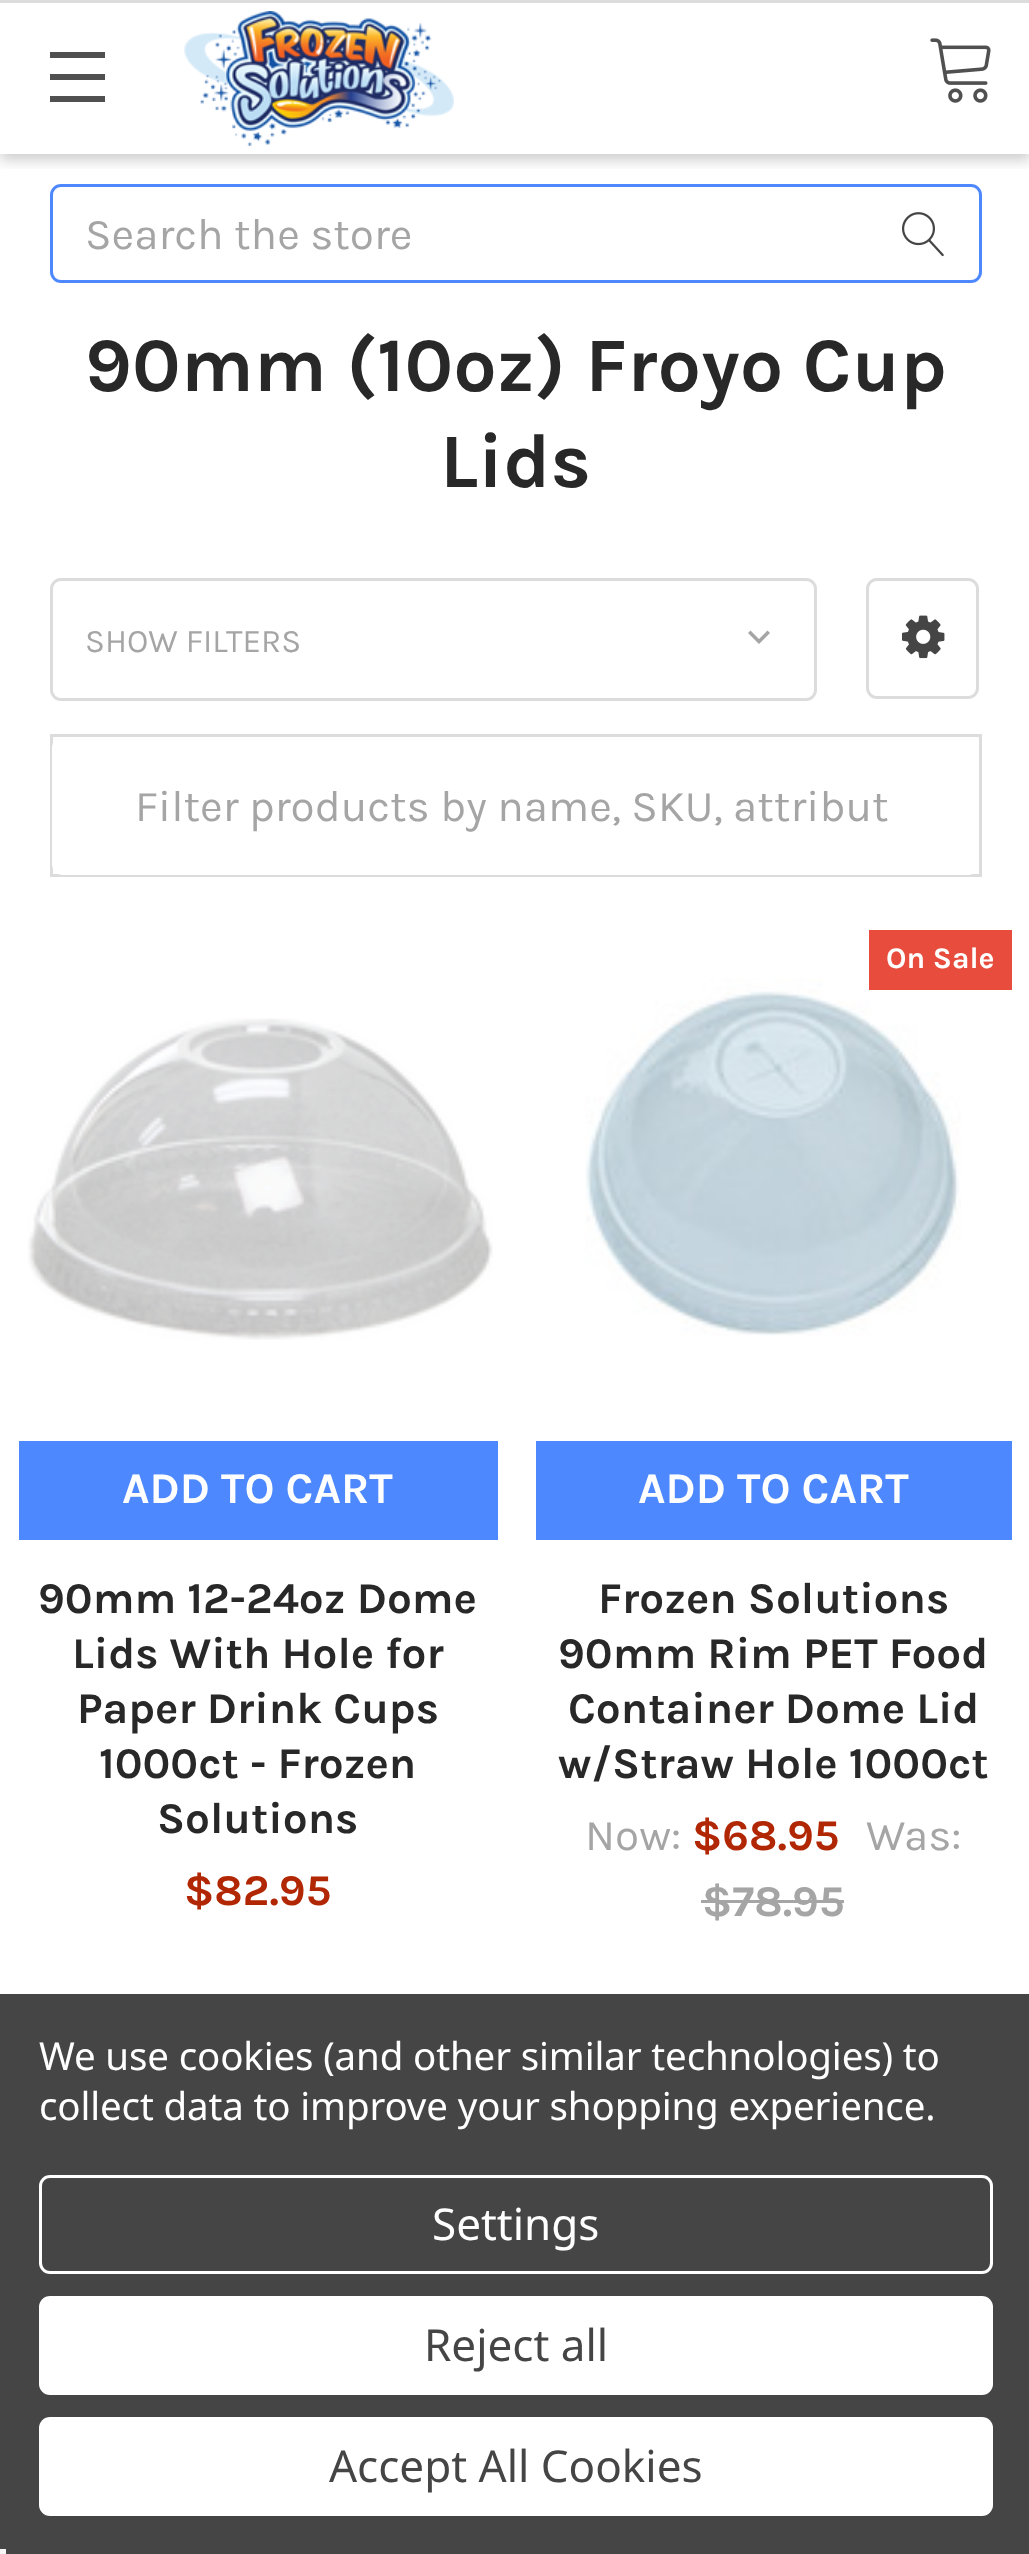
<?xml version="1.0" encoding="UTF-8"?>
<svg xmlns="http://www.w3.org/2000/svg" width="1029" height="2554">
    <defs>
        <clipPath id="clip1"><rect x="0" y="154" width="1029" height="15"/></clipPath>
        <filter id="blur1" x="-50%" y="-200%" width="200%" height="500%"><feGaussianBlur stdDeviation="7"/></filter>
    </defs>
    <rect width="100%" height="100%" fill="#FFFFFF"/>
    <g clip-path="url(#clip1)">
        <rect x="0" y="6" width="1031" height="154" fill="#000000" fill-opacity="0.2" filter="url(#blur1)"/>
    </g>
    <rect x="0" y="0" width="1029" height="3" fill="#DCDCDC"/>
    <rect x="50" y="74" width="55" height="6" fill="#505050"/>
    <rect x="50" y="52" width="55" height="6" fill="#505050"/>
    <rect x="50" y="96" width="55" height="6" fill="#505050"/>
    <image x="184" y="11" width="270" height="135" href="img_01.png"/>
    <image x="930" y="38" width="61" height="65" href="img_02.png"/>
    <rect x="51.5" y="185.5" width="929" height="96" rx="9.5" fill="none" stroke="#4D88FF" stroke-width="3"/>
    <text x="85" y="249" font-family="Karla" font-size="44" fill="#A5A5A5">Search the store</text>
    <image x="902" y="212" width="42" height="45" href="img_03.png"/>
    <text x="85" y="391" font-family="Karla" font-size="77" font-weight="700" fill="#282828">90mm (10oz) Froyo Cup</text>
    <text x="440" y="487" font-family="Karla" font-size="77" font-weight="700" fill="#282828">Lids</text>
    <rect x="51.5" y="579.5" width="764" height="120" rx="9.5" fill="none" stroke="#DCDCDC" stroke-width="3"/>
    <text x="85" y="652" font-family="Karla" font-size="33" fill="#A5A5A5">SHOW FILTERS</text>
    <path d="M 750.5 630.5 L 759 639 L 767.5 630.5 L 770 633 L 759 644 L 748 633 Z" fill="#A5A5A5"/>
    <rect x="867.5" y="579.5" width="110" height="118" rx="9.5" fill="none" stroke="#DCDCDC" stroke-width="3"/>
    <image x="902" y="615" width="43" height="44" href="img_04.png"/>
    <rect x="51.5" y="735.5" width="929" height="140" fill="none" stroke="#DCDCDC" stroke-width="3"/>
    <rect x="52" y="737" width="927" height="138" rx="11" fill="#FFFFFF"/>
    <text x="135" y="821" font-family="Karla" font-size="44" fill="#A5A5A5">Filter products by name, SKU, attribut</text>
    <image x="28" y="1018" width="465" height="322" href="img_05.png"/>
    <rect x="19" y="1441" width="479" height="99" fill="#4D88FF"/>
    <text x="122" y="1503" font-family="Karla" font-size="44" font-weight="700" fill="#FFFFFF">ADD TO CART</text>
    <text x="38" y="1613" font-family="Karla" font-size="44" font-weight="700" fill="#282828">90mm 12-24oz Dome</text>
    <text x="72" y="1668" font-family="Karla" font-size="44" font-weight="700" fill="#282828">Lids With Hole for</text>
    <text x="77" y="1723" font-family="Karla" font-size="44" font-weight="700" fill="#282828">Paper Drink Cups</text>
    <text x="99" y="1778" font-family="Karla" font-size="44" font-weight="700" fill="#282828">1000ct - Frozen</text>
    <text x="157" y="1833" font-family="Karla" font-size="44" font-weight="700" fill="#282828">Solutions</text>
    <text x="184" y="1905" font-family="Karla" font-size="44" font-weight="700" fill="#B12704">$82.95</text>
    <image x="585" y="978" width="376" height="358" href="img_06.png"/>
    <rect x="869" y="930" width="143" height="60" fill="#E74C3C"/>
    <text x="886" y="968" font-family="Karla" font-size="30" font-weight="700" fill="#FFFFFF">On Sale</text>
    <rect x="536" y="1441" width="476" height="99" fill="#4D88FF"/>
    <text x="638" y="1503" font-family="Karla" font-size="44" font-weight="700" fill="#FFFFFF">ADD TO CART</text>
    <text x="598" y="1613" font-family="Karla" font-size="44" font-weight="700" fill="#282828">Frozen Solutions</text>
    <text x="558" y="1668" font-family="Karla" font-size="44" font-weight="700" fill="#282828">90mm Rim PET Food</text>
    <text x="568" y="1723" font-family="Karla" font-size="44" font-weight="700" fill="#282828">Container Dome Lid</text>
    <text x="558" y="1778" font-family="Karla" font-size="44" font-weight="700" fill="#282828">w/Straw Hole 1000ct</text>
    <text x="585" y="1850" font-family="Karla" font-size="44" fill="#A5A5A5">Now:</text>
    <text x="692" y="1850" font-family="Karla" font-size="44" font-weight="700" fill="#B12704">$68.95</text>
    <text x="866" y="1850" font-family="Karla" font-size="44" fill="#A5A5A5">Was:</text>
    <text x="702" y="1916" font-family="Karla" font-size="44" font-weight="700" fill="#A5A5A5">$78.95</text>
    <rect x="701" y="1900" width="143" height="3" fill="#A5A5A5"/>
    <rect x="0" y="1994" width="1029" height="560" fill="#454545"/>
    <text font-family="Noto Sans" font-size="38.5" letter-spacing="-0.15" fill="#FFFFFF">
        <tspan x="39" y="2070">We use cookies (and other similar technologies) to</tspan>
        <tspan x="39" y="2120">collect data to improve your shopping experience.</tspan>
    </text>
    <rect x="40.5" y="2176.5" width="951" height="96" rx="9.5" fill="none" stroke="#FFFFFF" stroke-width="3"/>
    <text x="432" y="2240" font-family="Noto Sans" font-size="44" fill="#FFFFFF">Settings</text>
    <rect x="39" y="2296" width="954" height="99" rx="11" fill="#FFFFFF"/>
    <text x="424" y="2361" font-family="Noto Sans" font-size="44" fill="#454545">Reject all</text>
    <rect x="39" y="2417" width="954" height="99" rx="11" fill="#FFFFFF"/>
    <text x="329" y="2482" font-family="Noto Sans" font-size="44" fill="#454545">Accept All Cookies</text>
    <rect x="0" y="2549" width="6" height="5" fill="#F5F5F5"/>
</svg>
